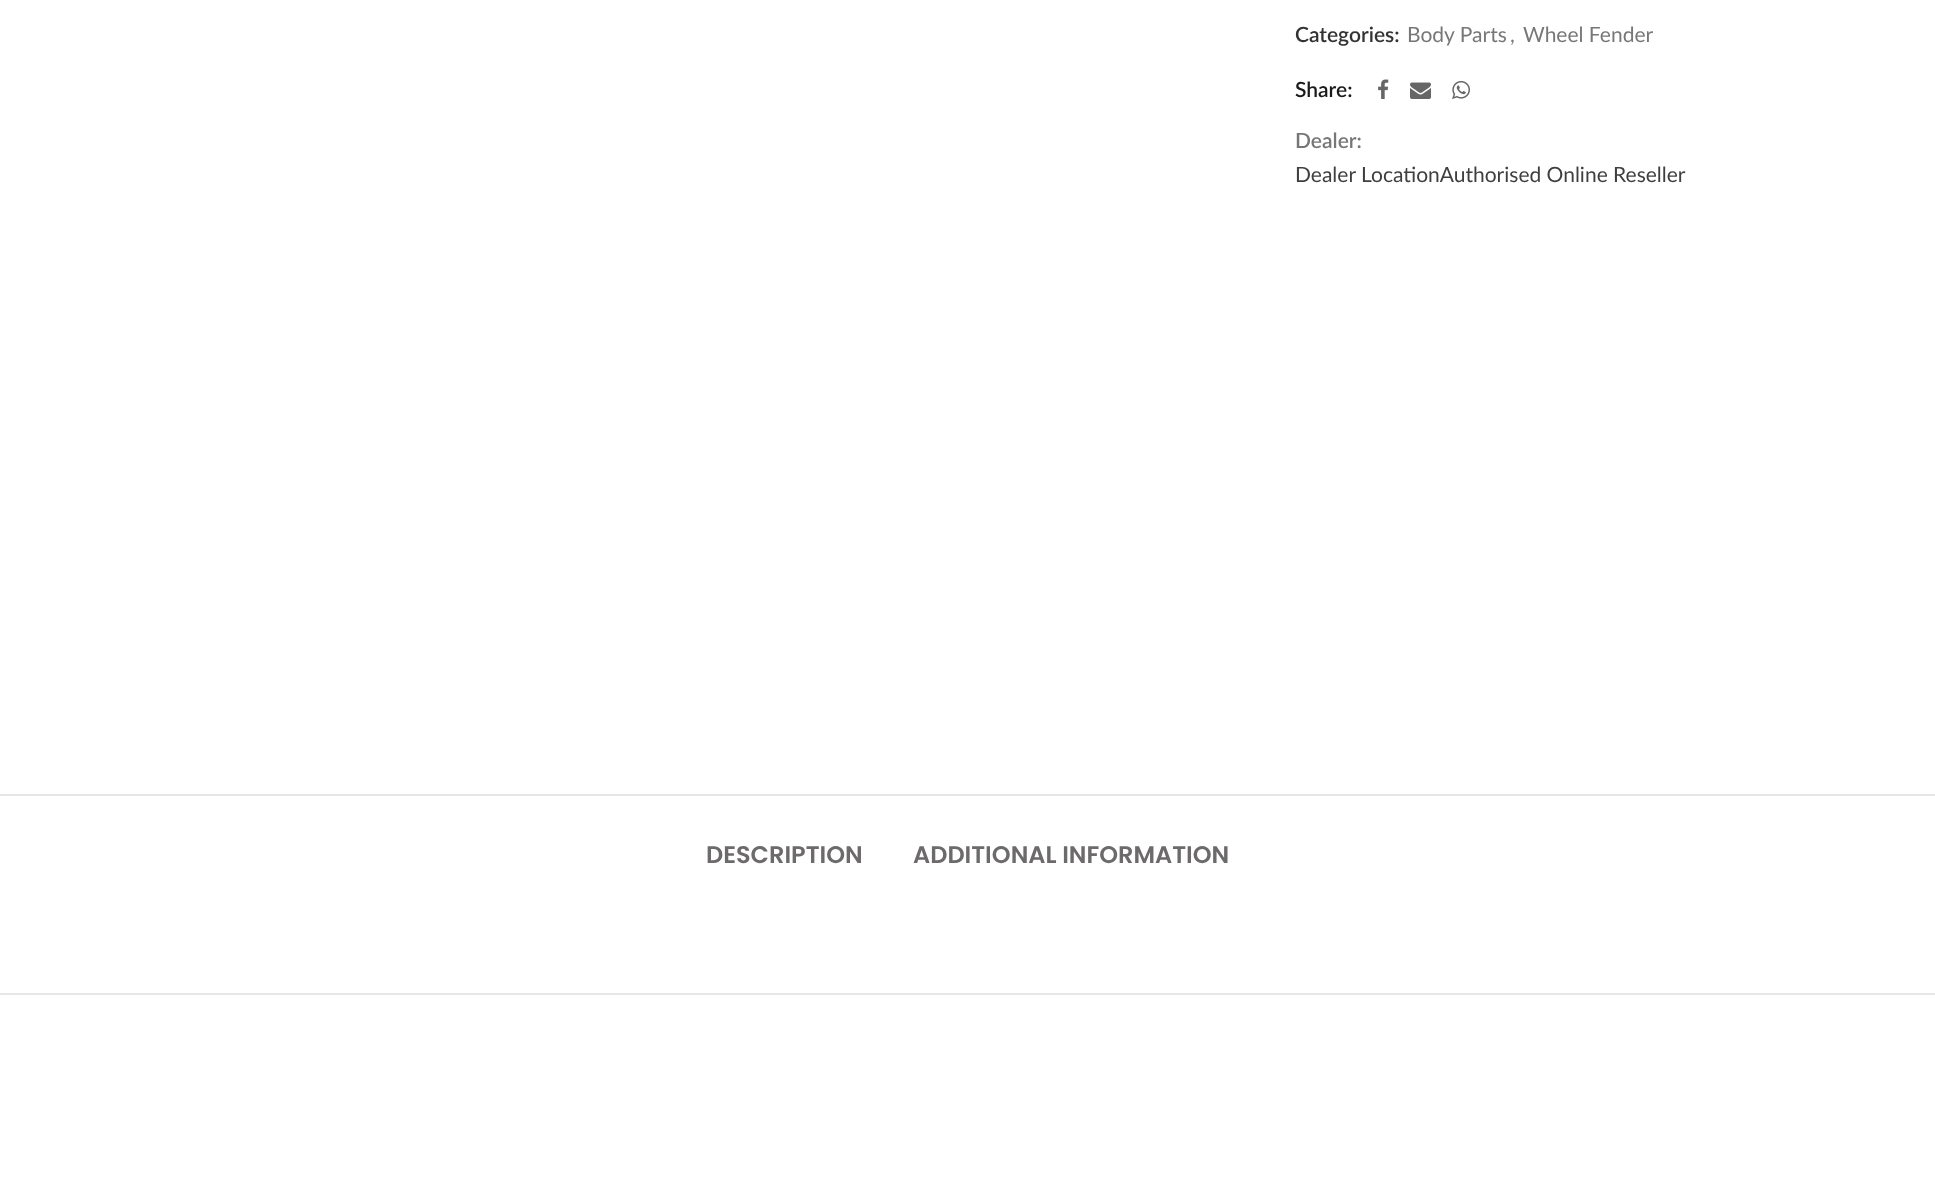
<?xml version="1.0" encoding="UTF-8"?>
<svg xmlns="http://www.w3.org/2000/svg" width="1935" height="1201">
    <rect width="100%" height="100%" fill="#FFFFFF"/>
    <text x="1295" y="42" font-family="Lato" font-size="21" font-weight="600" fill="#333333">Categories:</text>
    <text x="1407" y="42" font-family="Lato" font-size="21" fill="#777777">Body Parts</text>
    <text x="1510" y="42" font-family="Lato" font-size="21" fill="#777777">,</text>
    <text x="1523" y="42" font-family="Lato" font-size="21" fill="#777777">Wheel Fender</text>
    <text x="1295" y="97" font-family="Lato" font-size="21" font-weight="600" fill="#1B1919">Share:</text>
    <image x="1378" y="79" width="11" height="20" href="img_01.png"/>
    <image x="1410" y="82" width="21" height="17" href="img_02.png"/>
    <image x="1452" y="81" width="18" height="18" href="img_03.png"/>
    <text x="1295" y="148" font-family="Lato" font-size="21" font-weight="600" fill="#777777">Dealer:</text>
    <text x="1295" y="182" font-family="Lato" font-size="21" fill="#3F3F3F">Dealer LocationAuthorised Online Reseller</text>
    <rect x="0" y="794" width="1935" height="2" fill="#E6E6E6"/>
    <rect x="0" y="993" width="1935" height="2" fill="#E6E6E6"/>
    <text x="706" y="863" font-family="Poppins" font-size="24" font-weight="600" fill="#6C6A6A">DESCRIPTION</text>
    <text x="913" y="863" font-family="Poppins" font-size="24" font-weight="600" fill="#6C6A6A">ADDITIONAL INFORMATION</text>
</svg>
